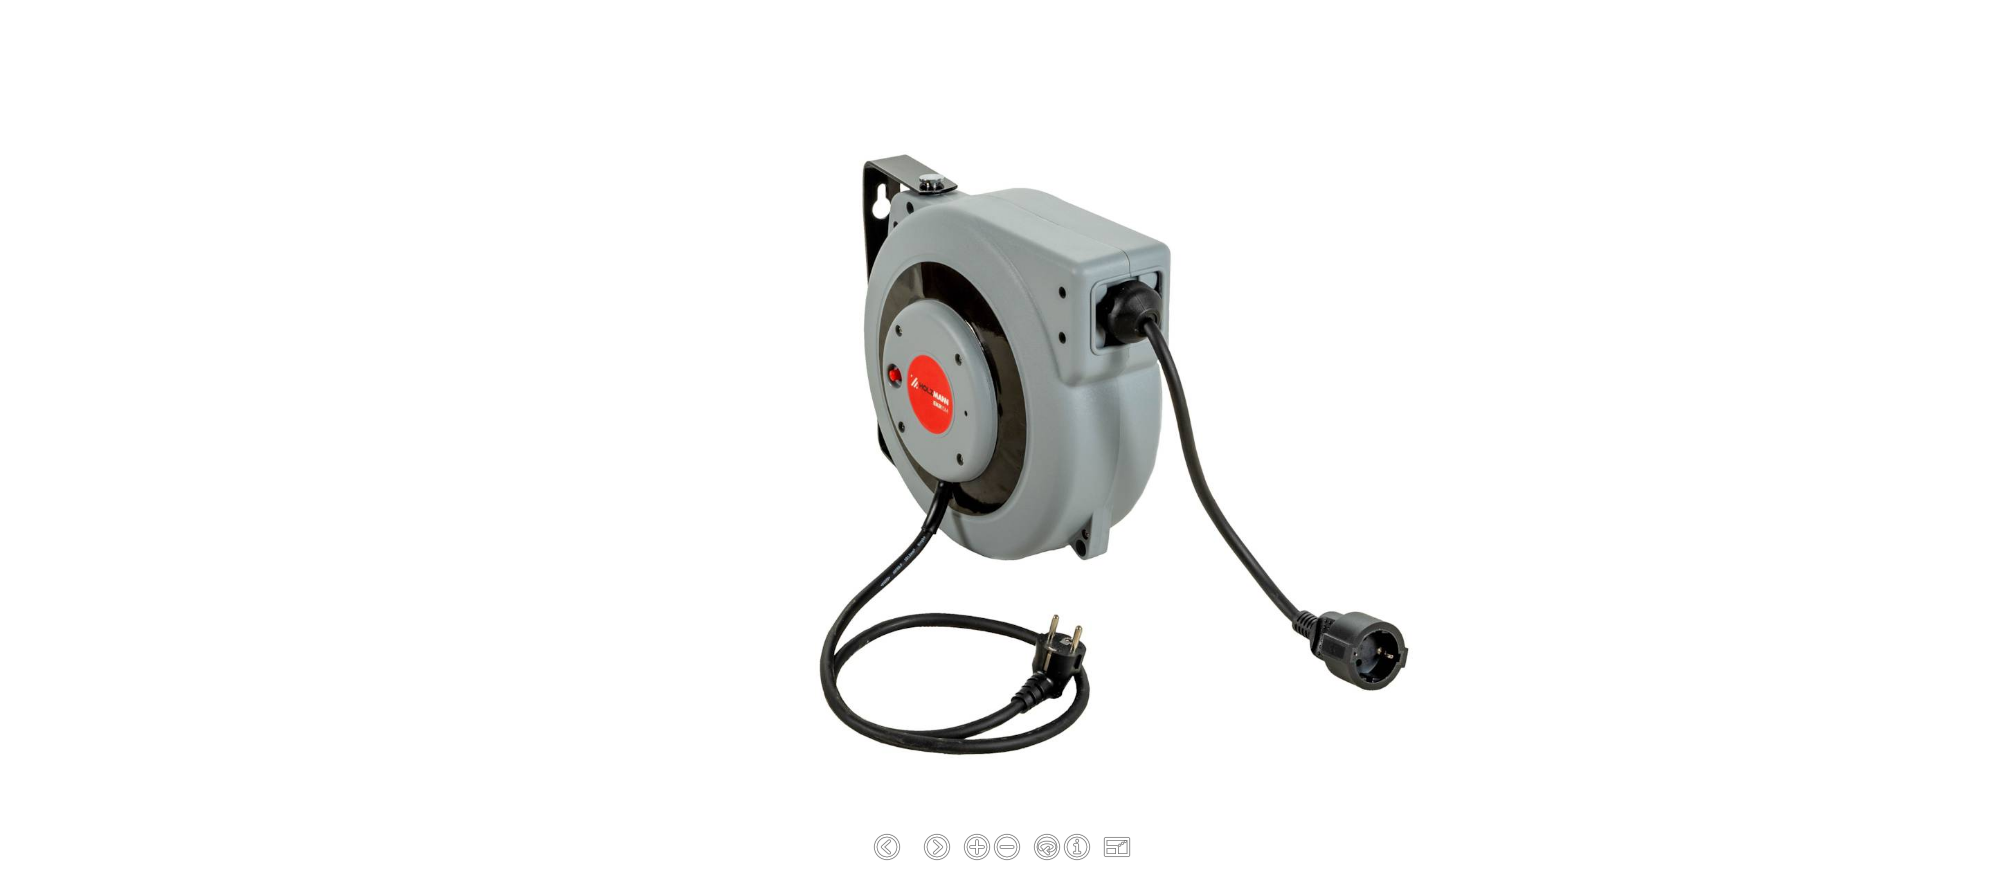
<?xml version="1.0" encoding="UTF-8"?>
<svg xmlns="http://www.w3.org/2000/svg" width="2005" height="886">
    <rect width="100%" height="100%" fill="#FFFFFF"/>
    <image x="815" y="151" width="598" height="608" href="img_01.png"/>
    <image x="873" y="833" width="28" height="28" href="img_02.png"/>
    <image x="923" y="833" width="28" height="28" href="img_03.png"/>
    <image x="963" y="833" width="28" height="28" href="img_04.png"/>
    <image x="993" y="833" width="28" height="28" href="img_05.png"/>
    <image x="1033" y="833" width="28" height="28" href="img_06.png"/>
    <image x="1063" y="833" width="28" height="28" href="img_07.png"/>
    <image x="1103" y="836" width="28" height="22" href="img_08.png"/>
</svg>
